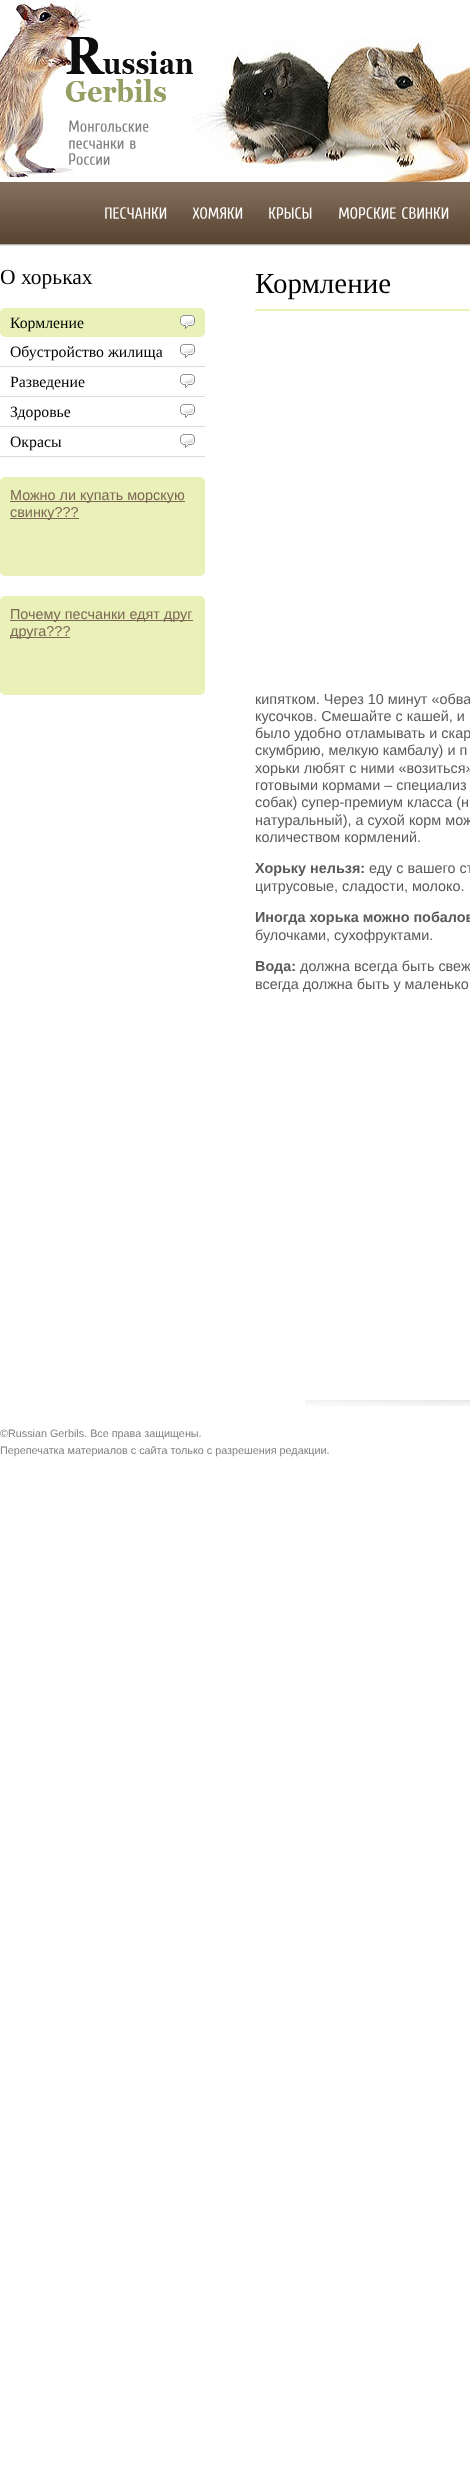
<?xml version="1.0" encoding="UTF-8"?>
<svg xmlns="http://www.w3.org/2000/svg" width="470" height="2475">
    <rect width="100%" height="100%" fill="#FFFFFF"/>
    <image x="191" y="37" width="279" height="145" href="img_01.png"/>
    <image x="0" y="0" width="193" height="178" href="img_02.png"/>
    <image x="69" y="120" width="80" height="12" href="img_03.png"/>
    <image x="69" y="140" width="55" height="9" href="img_04.png"/>
    <image x="130" y="140" width="6" height="9" href="img_05.png"/>
    <image x="69" y="153" width="41" height="12" href="img_06.png"/>
    <image x="0" y="182" width="470" height="64" href="img_07.png"/>
    <image x="105" y="207" width="62" height="12" href="img_08.png"/>
    <image x="192" y="207" width="51" height="12" href="img_09.png"/>
    <image x="269" y="207" width="43" height="12" href="img_10.png"/>
    <image x="339" y="207" width="57" height="12" href="img_11.png"/>
    <image x="402" y="207" width="47" height="12" href="img_12.png"/>
    <text x="0" y="284" font-family="Liberation Serif" font-size="21.5" fill="#000000">О хорьках</text>
    <rect x="0" y="308" width="205" height="29" rx="5" fill="#E9F0B8"/>
    <image x="180" y="315" width="15" height="14" href="img_13.png"/>
    <text x="10" y="328" font-family="Liberation Serif" font-size="15.75" fill="#000000">Кормление</text>
    <rect x="0" y="366" width="205" height="1" fill="#DCDCDC"/>
    <image x="180" y="344" width="15" height="14" href="img_14.png"/>
    <text x="10" y="357" font-family="Liberation Serif" font-size="15.75" fill="#000000">Обустройство жилища</text>
    <rect x="0" y="396" width="205" height="1" fill="#DCDCDC"/>
    <image x="180" y="374" width="15" height="14" href="img_14.png"/>
    <text x="10" y="387" font-family="Liberation Serif" font-size="15.75" fill="#000000">Разведение</text>
    <rect x="0" y="426" width="205" height="1" fill="#DCDCDC"/>
    <image x="180" y="404" width="15" height="14" href="img_14.png"/>
    <text x="10" y="417" font-family="Liberation Serif" font-size="15.75" fill="#000000">Здоровье</text>
    <rect x="0" y="456" width="205" height="1" fill="#DCDCDC"/>
    <image x="180" y="434" width="15" height="14" href="img_14.png"/>
    <text x="10" y="447" font-family="Liberation Serif" font-size="15.75" fill="#000000">Окрасы</text>
    <rect x="0" y="477" width="205" height="99" rx="5" fill="#E9F0B8"/>
    <rect x="10" y="501" width="175" height="1" fill="#7D6855"/>
    <text x="10" y="500" font-family="Liberation Sans" font-size="14.4" fill="#7D6855">Можно ли купать морскую</text>
    <rect x="10" y="518" width="69" height="1" fill="#7D6855"/>
    <text x="10" y="517" font-family="Liberation Sans" font-size="14.4" fill="#7D6855">свинку???</text>
    <rect x="0" y="596" width="205" height="99" rx="5" fill="#E9F0B8"/>
    <rect x="10" y="620" width="183" height="1" fill="#7D6855"/>
    <text x="10" y="619" font-family="Liberation Sans" font-size="14.4" fill="#7D6855">Почему песчанки едят друг</text>
    <rect x="10" y="637" width="60" height="1" fill="#7D6855"/>
    <text x="10" y="636" font-family="Liberation Sans" font-size="14.4" fill="#7D6855">друга???</text>
    <rect x="255" y="309" width="215" height="2" fill="#E9F0B8"/>
    <text x="255" y="293" font-family="Liberation Serif" font-size="29" fill="#000000">Кормление</text>
    <text font-family="Liberation Sans" font-size="14.4" fill="#5A5A5A">
        <tspan x="255" y="704">кипятком. Через 10 минут «обва</tspan>
        <tspan x="255" y="721">кусочков. Смешайте с кашей, и</tspan>
        <tspan x="255" y="738">было удобно отламывать и скар</tspan>
        <tspan x="255" y="755">скумбрию, мелкую камбалу) и п</tspan>
        <tspan x="255" y="773">хорьки любят с ними «возиться»</tspan>
        <tspan x="255" y="790">готовыми кормами – специализ</tspan>
        <tspan x="255" y="807">собак) супер-премиум класса (н</tspan>
        <tspan x="255" y="825">натуральный), а сухой корм мож</tspan>
        <tspan x="255" y="842">количеством кормлений.</tspan>
    </text>
    <text x="255" y="873" font-family="Liberation Sans" font-size="14.4" font-weight="700" fill="#5A5A5A">Хорьку нельзя:</text>
    <text x="369" y="873" font-family="Liberation Sans" font-size="14.4" fill="#5A5A5A">еду с вашего ст</text>
    <text x="255" y="891" font-family="Liberation Sans" font-size="14.4" fill="#5A5A5A">цитрусовые, сладости, молоко.</text>
    <text x="255" y="922" font-family="Liberation Sans" font-size="14.4" font-weight="700" fill="#5A5A5A">Иногда хорька можно побалов</text>
    <text x="255" y="940" font-family="Liberation Sans" font-size="14.4" fill="#5A5A5A">булочками, сухофруктами.</text>
    <text x="255" y="971" font-family="Liberation Sans" font-size="14.4" font-weight="700" fill="#5A5A5A">Вода:</text>
    <text x="300" y="971" font-family="Liberation Sans" font-size="14.4" fill="#5A5A5A">должна всегда быть свеж</text>
    <text x="255" y="989" font-family="Liberation Sans" font-size="14.4" fill="#5A5A5A">всегда должна быть у маленько</text>
    <image x="305" y="1400" width="165" height="6" href="img_15.png"/>
    <text font-family="Liberation Sans" font-size="10.8" fill="#808080">
        <tspan x="0" y="1437">©Russian Gerbils. Все права защищены.</tspan>
        <tspan x="0" y="1454">Перепечатка материалов с сайта только с разрешения редакции.</tspan>
    </text>
</svg>
